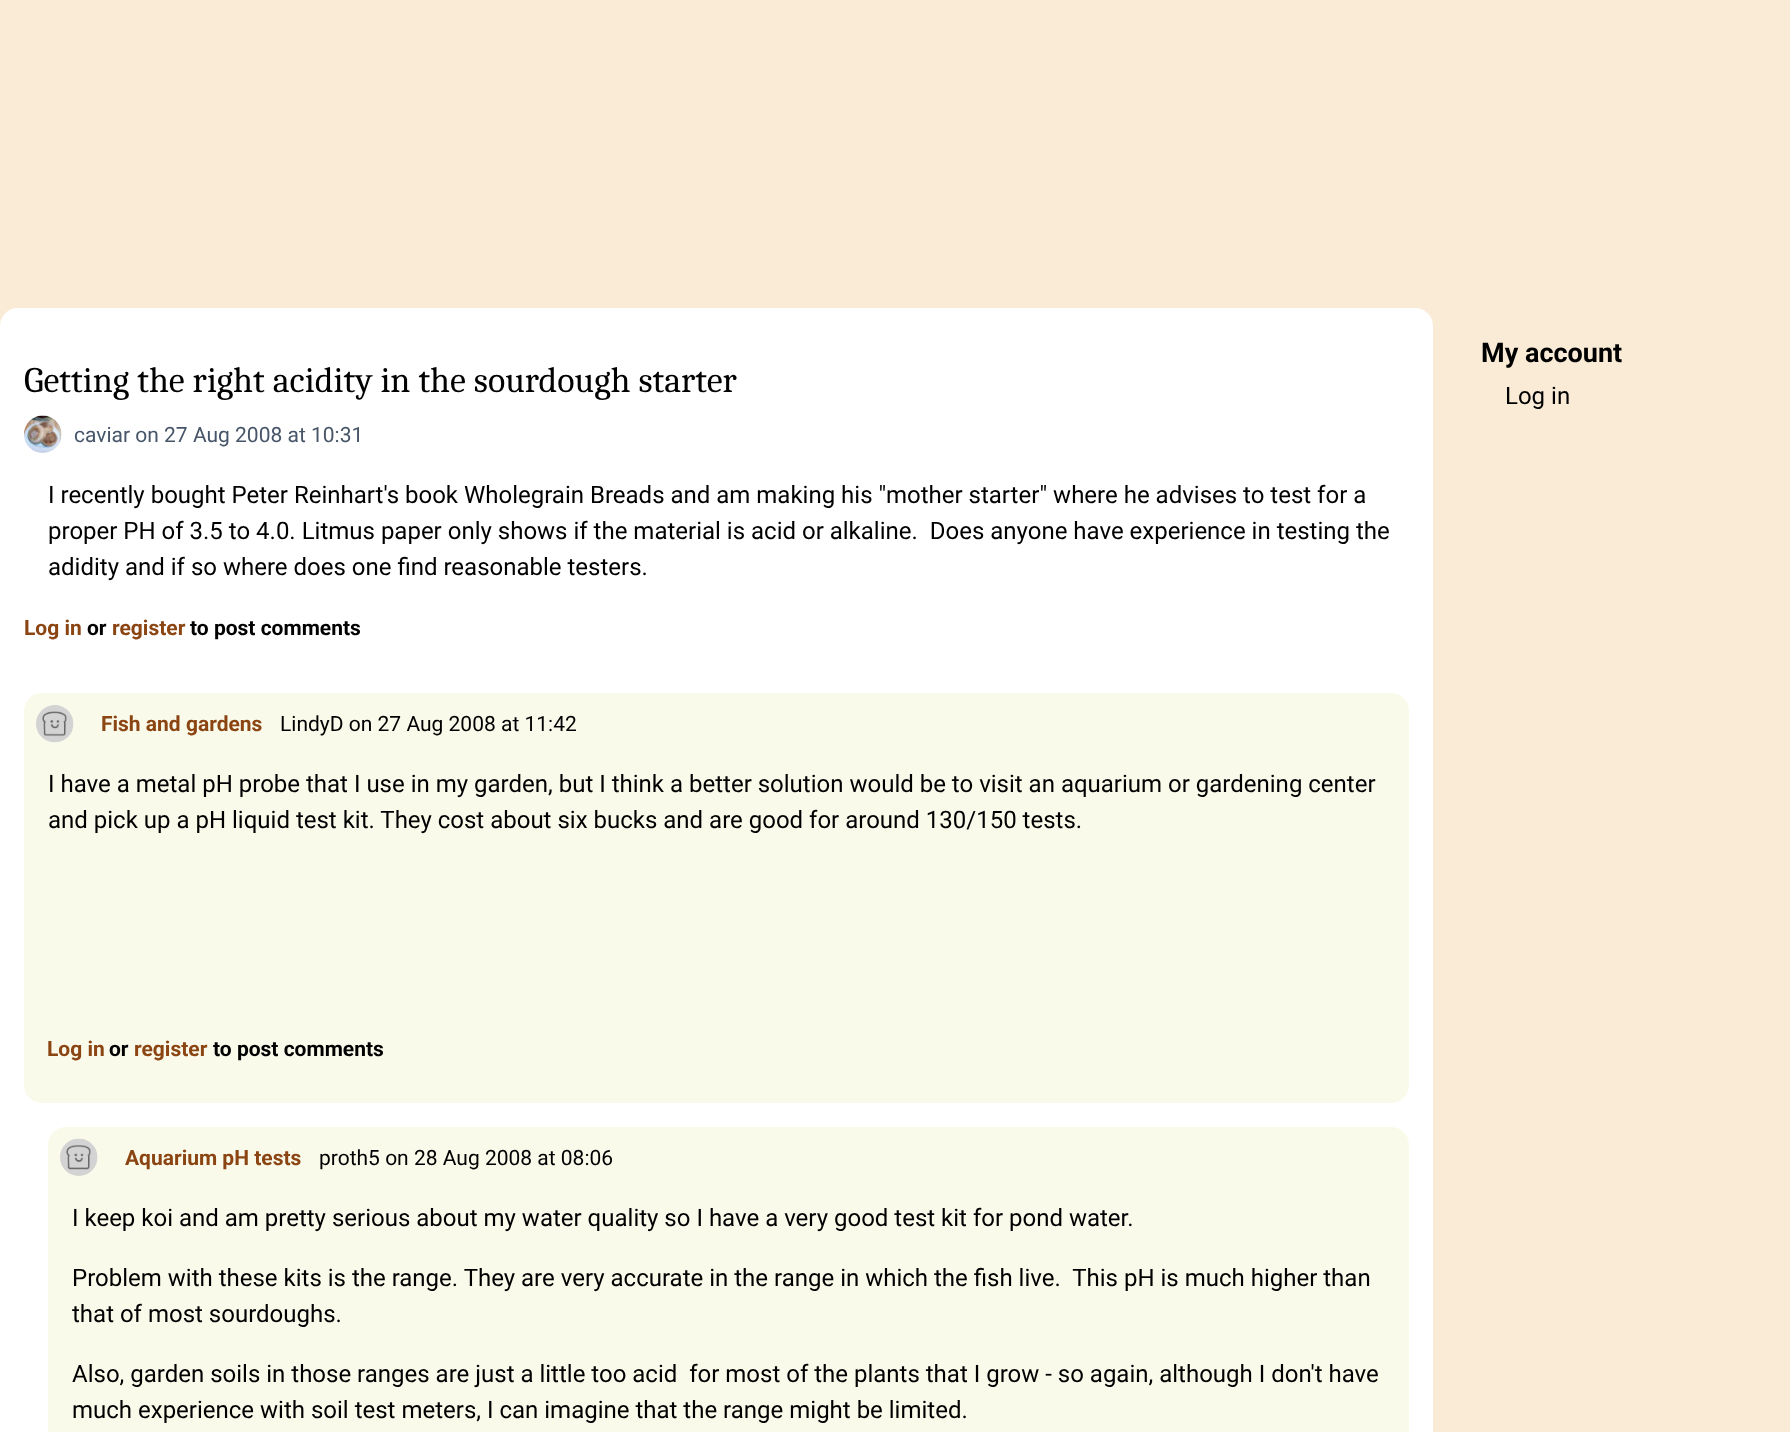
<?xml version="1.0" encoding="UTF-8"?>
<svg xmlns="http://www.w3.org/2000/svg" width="1790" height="1432">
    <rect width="100%" height="100%" fill="#FAEBD7"/>
    <rect x="0" y="308" width="1433" height="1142" rx="18" fill="#FFFFFF"/>
    <text x="24" y="392" font-family="Caladea" font-size="36" fill="#000000">Getting the right acidity in the sourdough starter</text>
    <image x="24" y="415" width="38" height="38" href="img_01.png"/>
    <text x="74" y="442" font-family="Roboto" font-size="21" fill="#475569">caviar on 27 Aug 2008 at 10:31</text>
    <text font-family="Roboto" font-size="24" fill="#000000" xml:space="preserve"><tspan x="48" y="503">I recently bought Peter Reinhart's book Wholegrain Breads and am making his "mother starter" where he advises to test for a</tspan><tspan x="48" y="539">proper PH of 3.5 to 4.0. Litmus paper only shows if the material is acid or alkaline.  Does anyone have experience in testing the</tspan><tspan x="48" y="575">adidity and if so where does one find reasonable testers.</tspan></text>
    <text x="24" y="635" font-family="Roboto" font-size="21" font-weight="700" fill="#8B4513">Log in</text>
    <text x="87" y="635" font-family="Roboto" font-size="21" font-weight="700" fill="#000000">or</text>
    <text x="112" y="635" font-family="Roboto" font-size="21" font-weight="700" fill="#8B4513">register</text>
    <text x="190" y="635" font-family="Roboto" font-size="21" font-weight="700" fill="#000000">to post comments</text>
    <rect x="24" y="693" width="1385" height="410" rx="18" fill="#FAFAEB"/>
    <image x="36" y="705" width="38" height="38" href="img_02.png"/>
    <text x="101" y="731" font-family="Roboto" font-size="21" font-weight="700" fill="#8B4513">Fish and gardens</text>
    <text x="280" y="731" font-family="Roboto" font-size="21" fill="#000000">LindyD on 27 Aug 2008 at 11:42</text>
    <text font-family="Roboto" font-size="24" fill="#000000">
        <tspan x="48" y="792">I have a metal pH probe that I use in my garden, but I think a better solution would be to visit an aquarium or gardening center</tspan>
        <tspan x="48" y="828">and pick up a pH liquid test kit. They cost about six bucks and are good for around 130/150 tests.</tspan>
    </text>
    <text x="47" y="1056" font-family="Roboto" font-size="21" font-weight="700" fill="#8B4513">Log in</text>
    <text x="109" y="1056" font-family="Roboto" font-size="21" font-weight="700" fill="#000000">or</text>
    <text x="134" y="1056" font-family="Roboto" font-size="21" font-weight="700" fill="#8B4513">register</text>
    <text x="213" y="1056" font-family="Roboto" font-size="21" font-weight="700" fill="#000000">to post comments</text>
    <rect x="48" y="1127" width="1361" height="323" rx="18" fill="#FAFAEB"/>
    <image x="60" y="1138" width="38" height="38" href="img_03.png"/>
    <text x="125" y="1165" font-family="Roboto" font-size="21" font-weight="700" fill="#8B4513">Aquarium pH tests</text>
    <text x="319" y="1165" font-family="Roboto" font-size="21" fill="#000000">proth5 on 28 Aug 2008 at 08:06</text>
    <text x="72" y="1226" font-family="Roboto" font-size="24" fill="#000000">I keep koi and am pretty serious about my water quality so I have a very good test kit for pond water.</text>
    <text font-family="Roboto" font-size="24" fill="#000000" xml:space="preserve"><tspan x="72" y="1286">Problem with these kits is the range. They are very accurate in the range in which the fish live.  This pH is much higher than</tspan><tspan x="72" y="1322">that of most sourdoughs.</tspan></text>
    <text font-family="Roboto" font-size="24" fill="#000000" xml:space="preserve"><tspan x="72" y="1382">Also, garden soils in those ranges are just a little too acid  for most of the plants that I grow - so again, although I don't have</tspan><tspan x="72" y="1418">much experience with soil test meters, I can imagine that the range might be limited.</tspan></text>
    <text x="1481" y="362" font-family="Roboto" font-size="27" font-weight="700" fill="#000000">My account</text>
    <text x="1505" y="404" font-family="Roboto" font-size="24" fill="#000000">Log in</text>
</svg>
